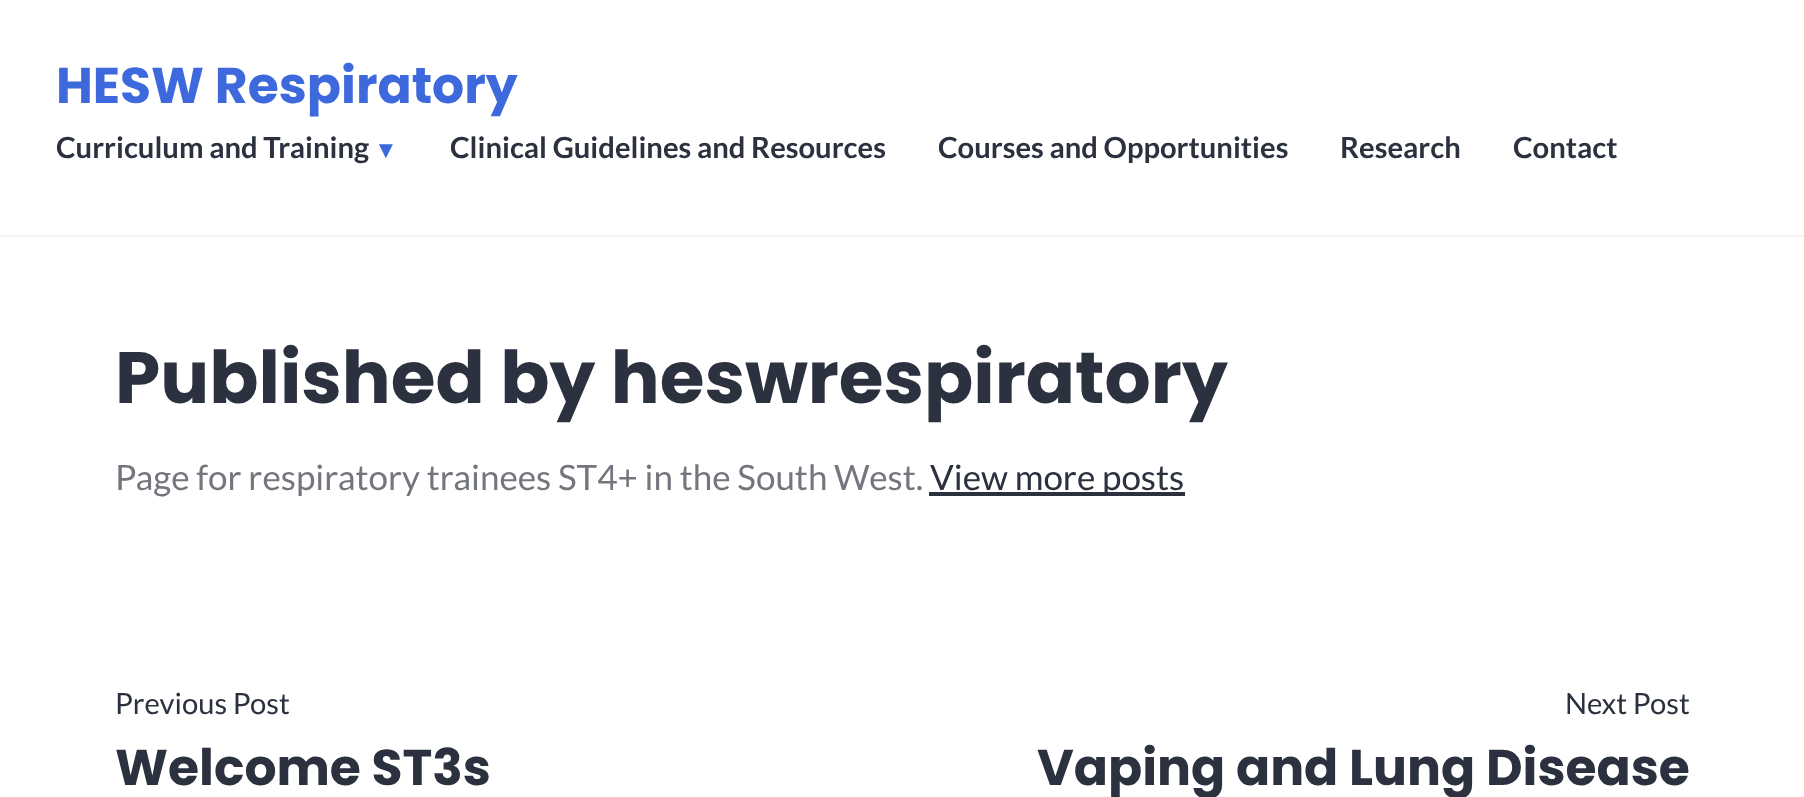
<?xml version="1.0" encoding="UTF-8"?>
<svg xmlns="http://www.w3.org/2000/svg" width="1804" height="797">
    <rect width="100%" height="100%" fill="#FFFFFF"/>
    <rect x="0" y="235" width="1804" height="2" fill="#F3F3F3"/>
    <text x="56" y="103" font-family="Poppins" font-size="50.4" font-weight="700" fill="#3E69DC">HESW Respiratory</text>
    <text x="56" y="158" font-family="Lato" font-size="29.2" font-weight="700" fill="#2C313F">Curriculum and Training</text>
    <text x="374" y="158" font-family="Liberation Sans" font-size="24" font-weight="700" fill="#3E69DC">▼</text>
    <text x="450" y="158" font-family="Lato" font-size="29.2" font-weight="700" fill="#2C313F">Clinical Guidelines and Resources</text>
    <text x="938" y="158" font-family="Lato" font-size="29.2" font-weight="700" fill="#2C313F">Courses and Opportunities</text>
    <text x="1340" y="158" font-family="Lato" font-size="29.2" font-weight="700" fill="#2C313F">Research</text>
    <text x="1513" y="158" font-family="Lato" font-size="29.2" font-weight="700" fill="#2C313F">Contact</text>
    <text x="115" y="403" font-family="Poppins" font-size="72.6" font-weight="700" fill="#2C313F">Published by heswrespiratory</text>
    <text x="115" y="490" font-family="Lato" font-size="35" fill="#74767E">Page for respiratory trainees ST4+ in the South West.</text>
    <rect x="929" y="492" width="256" height="4" fill="#2C313F"/>
    <text x="930" y="490" font-family="Lato" font-size="35" fill="#2C313F">View more posts</text>
    <text x="115" y="714" font-family="Lato" font-size="29.2" fill="#2C313F">Previous Post</text>
    <text x="115" y="785" font-family="Poppins" font-size="50.4" font-weight="700" fill="#2C313F">Welcome ST3s</text>
    <text x="1565" y="714" font-family="Lato" font-size="29.2" fill="#2C313F">Next Post</text>
    <text x="1037" y="785" font-family="Poppins" font-size="50.4" font-weight="700" fill="#2C313F">Vaping and Lung Disease</text>
</svg>
